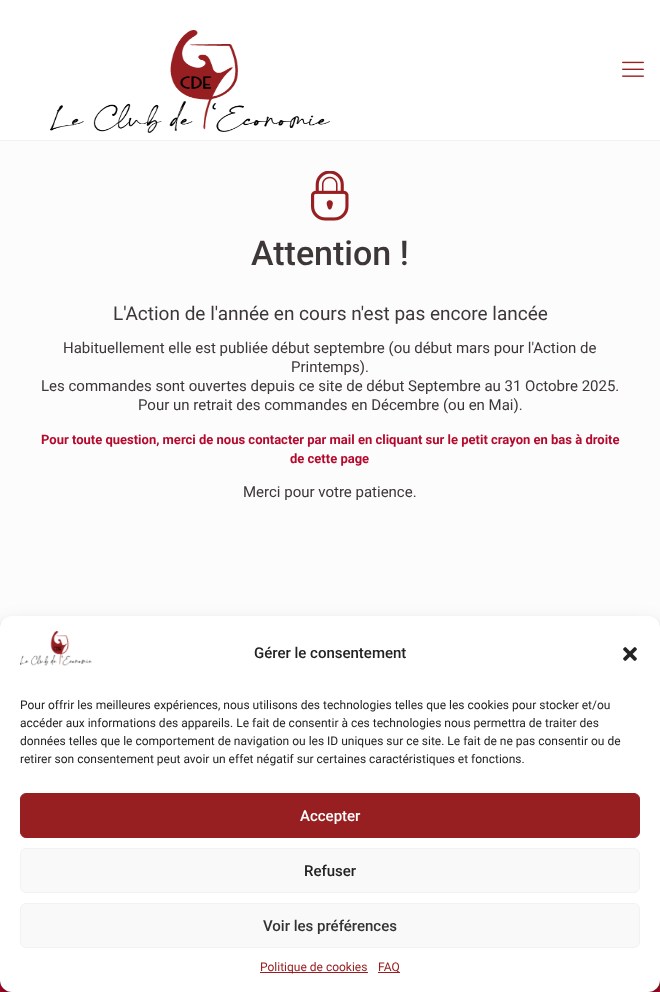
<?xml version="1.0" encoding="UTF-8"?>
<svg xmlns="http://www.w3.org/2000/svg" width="660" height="992">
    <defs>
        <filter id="blur1" x="-50%" y="-200%" width="200%" height="500%"><feGaussianBlur stdDeviation="3"/></filter>
        <filter id="blur2" x="-50%" y="-200%" width="200%" height="500%"><feGaussianBlur stdDeviation="10"/></filter>
    </defs>
    <rect width="100%" height="100%" fill="#FCFCFC"/>
    <rect x="0" y="0" width="660" height="140" fill="#FFFFFF"/>
    <rect x="0" y="140" width="660" height="1" fill="#F2F2F2"/>
    <image x="50" y="30" width="280" height="103" href="img_01.png"/>
    <image x="622" y="61" width="22" height="16" href="img_02.png"/>
    <image x="311" y="171" width="38" height="50" href="img_03.png"/>
    <text x="251" y="265" font-family="Roboto" font-size="34" font-weight="500" fill="#3E3737">Attention !</text>
    <text x="113" y="320" font-family="Roboto" font-size="19" fill="#3E3737">L'Action de l'année en cours n'est pas encore lancée</text>
    <text x="63" y="353" font-family="Roboto" font-size="15" fill="#3E3737">Habituellement elle est publiée début septembre (ou début mars pour l'Action de</text>
    <text x="291" y="372" font-family="Roboto" font-size="15" fill="#3E3737">Printemps).</text>
    <text x="41" y="391" font-family="Roboto" font-size="15" fill="#3E3737">Les commandes sont ouvertes depuis ce site de début Septembre au 31 Octobre 2025.</text>
    <text x="138" y="410" font-family="Roboto" font-size="15" fill="#3E3737">Pour un retrait des commandes en Décembre (ou en Mai).</text>
    <text x="41" y="444" font-family="Roboto" font-size="13" font-weight="700" fill="#B4092D">Pour toute question, merci de nous contacter par mail en cliquant sur le petit crayon en bas à droite</text>
    <text x="290" y="463" font-family="Roboto" font-size="13" font-weight="700" fill="#B4092D">de cette page</text>
    <text x="243" y="497" font-family="Roboto" font-size="15" fill="#3E3737">Merci pour votre patience.</text>
    <rect x="657" y="980" width="3" height="7" fill="#971F21"/>
    <rect x="2.5" y="901.5" width="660" height="88" fill="none" stroke="#B4092D" stroke-width="5"/>
    <rect x="0" y="622" width="660" height="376" rx="12" fill="#000000" fill-opacity="0.23" filter="url(#blur1)"/>
    <rect x="0" y="626" width="660" height="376" rx="12" fill="#000000" fill-opacity="0.19" filter="url(#blur2)"/>
    <rect x="0" y="616" width="660" height="376" rx="12" fill="#FFFFFF"/>
    <image x="20" y="631" width="72" height="35" href="img_04.png"/>
    <text x="254" y="658" font-family="Roboto" font-size="15" font-weight="500" fill="#222222">Gérer le consentement</text>
    <image x="623" y="647" width="14" height="14" href="img_05.png"/>
    <text font-family="Roboto" font-size="12" fill="#222222">
        <tspan x="20" y="709">Pour offrir les meilleures expériences, nous utilisons des technologies telles que les cookies pour stocker et/ou</tspan>
        <tspan x="20" y="727">accéder aux informations des appareils. Le fait de consentir à ces technologies nous permettra de traiter des</tspan>
        <tspan x="20" y="745">données telles que le comportement de navigation ou les ID uniques sur ce site. Le fait de ne pas consentir ou de</tspan>
        <tspan x="20" y="763">retirer son consentement peut avoir un effet négatif sur certaines caractéristiques et fonctions.</tspan>
    </text>
    <rect x="20.5" y="793.5" width="619" height="44" rx="5.5" fill="#971F21" stroke="#971F21"/>
    <text x="300" y="821" font-family="Roboto" font-size="15" font-weight="500" fill="#FFFFFF">Accepter</text>
    <rect x="20.5" y="848.5" width="619" height="44" rx="5.5" fill="#F9F9F9" stroke="#F2F2F2"/>
    <text x="304" y="876" font-family="Roboto" font-size="15" font-weight="500" fill="#222222">Refuser</text>
    <rect x="20.5" y="903.5" width="619" height="44" rx="5.5" fill="#F9F9F9" stroke="#F2F2F2"/>
    <text x="263" y="931" font-family="Roboto" font-size="15" font-weight="500" fill="#333333">Voir les préférences</text>
    <rect x="260" y="972" width="108" height="1" fill="#971F21"/>
    <text x="260" y="971" font-family="Roboto" font-size="12" fill="#971F21">Politique de cookies</text>
    <rect x="378" y="972" width="22" height="1" fill="#971F21"/>
    <text x="378" y="971" font-family="Roboto" font-size="12" fill="#971F21">FAQ</text>
</svg>
